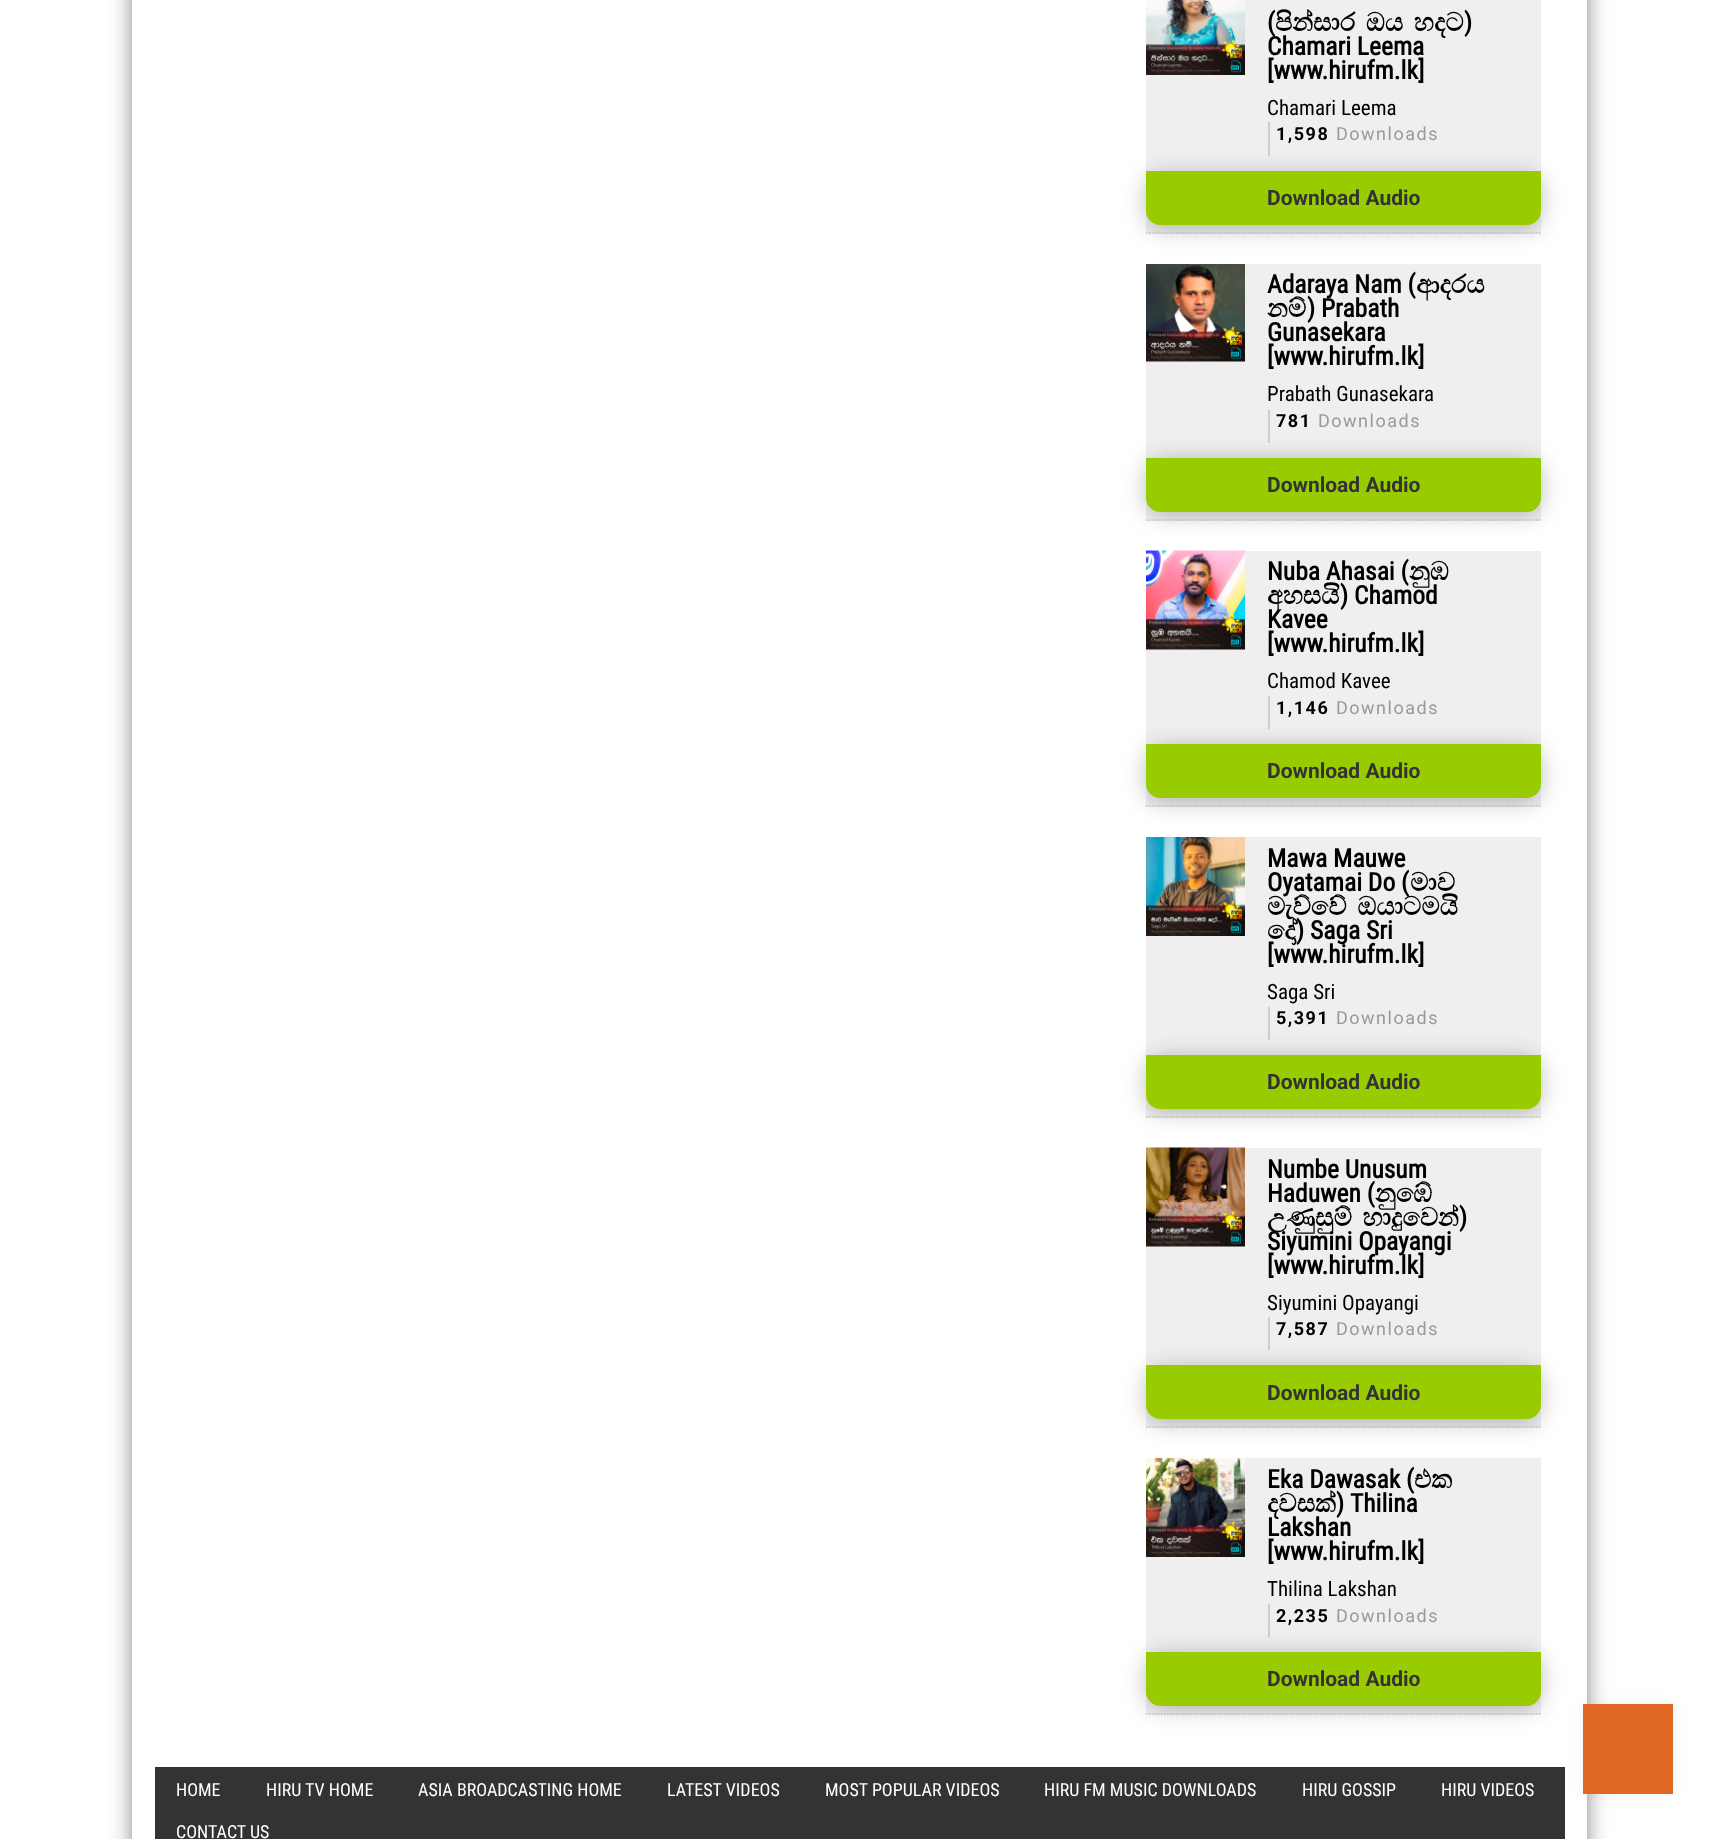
<?xml version="1.0" encoding="UTF-8"?>
<svg xmlns="http://www.w3.org/2000/svg" width="1717" height="1839">
    <defs>
        <clipPath id="clip1"><path d="M 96 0 H 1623 V 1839 H 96 Z M 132 -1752 H 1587 V 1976 H 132 Z" clip-rule="evenodd"/></clipPath>
        <filter id="blur1" x="-50%" y="-200%" width="200%" height="500%"><feGaussianBlur stdDeviation="13.5"/></filter>
        <filter id="blur2" x="-50%" y="-200%" width="200%" height="500%"><feGaussianBlur stdDeviation="12"/></filter>
        <filter id="blur3" x="-50%" y="-200%" width="200%" height="500%"><feGaussianBlur stdDeviation="7.5"/></filter>
    </defs>
    <rect width="100%" height="100%" fill="#FFFFFF"/>
    <g clip-path="url(#clip1)">
        <rect x="138" y="-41" width="1443" height="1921" fill="#000000" fill-opacity="0.75" filter="url(#blur1)"/>
    </g>
    <rect x="1146" y="0" width="395" height="234" fill="#EFEFEF"/>
    <path d="M 1146 233 H 1540.5" fill="none" stroke="#CCCCCC" stroke-width="1.5" stroke-dasharray="1.5 1.5"/>
    <image x="1146" y="0" width="99" height="75" href="img_01.png"/>
    <text x="1267" y="31" font-family="Roboto Condensed" font-size="25.5" font-weight="700" fill="#000000">(</text>
    <text x="1275" y="31" word-spacing="-2" font-family="FreeSerif" font-size="25.5" font-weight="700" fill="#000000">පින්සාර ඔය හදට</text>
    <text x="1464" y="31" font-family="Roboto Condensed" font-size="25.5" font-weight="700" fill="#000000">)</text>
    <text font-family="Roboto Condensed" font-size="25.5" font-weight="700" fill="#000000">
        <tspan x="1267" y="55">Chamari Leema</tspan>
        <tspan x="1267" y="79">[www.hirufm.lk]</tspan>
    </text>
    <text x="1267" y="115" font-family="Roboto Condensed" font-size="21" fill="#000000">Chamari Leema</text>
    <rect x="1148" y="176" width="391" height="51" rx="12" fill="#000000" fill-opacity="0.3" filter="url(#blur2)"/>
    <rect x="1268" y="122" width="2" height="34" fill="#CCCCCC"/>
    <text x="1276" y="140" font-family="Roboto" font-size="18" font-weight="700" letter-spacing="1.5" fill="#000000">1,598</text>
    <text x="1336" y="140" font-family="Roboto" font-size="18" letter-spacing="1.5" fill="#999999">Downloads</text>
    <path d="M 1146 171 H 1541 V 211 C 1541 218.5 1534.5 225 1527 225 H 1160 C 1152.5 225 1146 218.5 1146 211 Z" fill="#99CC00"/>
    <text x="1267" y="205" font-family="Roboto" font-size="21" font-weight="700" fill="#333333">Download Audio</text>
    <rect x="1146" y="264" width="395" height="257" fill="#EFEFEF"/>
    <path d="M 1146 520 H 1540.5" fill="none" stroke="#CCCCCC" stroke-width="1.5" stroke-dasharray="1.5 1.5"/>
    <image x="1146" y="264" width="99" height="98" href="img_02.png"/>
    <text x="1267" y="293" font-family="Roboto Condensed" font-size="25.5" font-weight="700" fill="#000000">Adaraya Nam (</text>
    <text x="1416" y="293" font-family="FreeSerif" font-size="25.5" font-weight="700" fill="#000000">ආදරය</text>
    <text x="1267" y="317" font-family="FreeSerif" font-size="25.5" font-weight="700" fill="#000000">නම්</text>
    <text x="1307" y="317" font-family="Roboto Condensed" font-size="25.5" font-weight="700" fill="#000000">) Prabath</text>
    <text font-family="Roboto Condensed" font-size="25.5" font-weight="700" fill="#000000">
        <tspan x="1267" y="341">Gunasekara</tspan>
        <tspan x="1267" y="365">[www.hirufm.lk]</tspan>
    </text>
    <text x="1267" y="401" font-family="Roboto Condensed" font-size="21" fill="#000000">Prabath Gunasekara</text>
    <rect x="1148" y="462" width="391" height="51" rx="12" fill="#000000" fill-opacity="0.3" filter="url(#blur2)"/>
    <rect x="1268" y="410" width="2" height="33" fill="#CCCCCC"/>
    <text x="1276" y="427" font-family="Roboto" font-size="18" font-weight="700" letter-spacing="1.5" fill="#000000">781</text>
    <text x="1318" y="427" font-family="Roboto" font-size="18" letter-spacing="1.5" fill="#999999">Downloads</text>
    <path d="M 1146 458 H 1541 V 498 C 1541 505.5 1534.5 512 1527 512 H 1160 C 1152.5 512 1146 505.5 1146 498 Z" fill="#99CC00"/>
    <text x="1267" y="492" font-family="Roboto" font-size="21" font-weight="700" fill="#333333">Download Audio</text>
    <rect x="1146" y="551" width="395" height="256" fill="#EFEFEF"/>
    <path d="M 1146 806 H 1540.5" fill="none" stroke="#CCCCCC" stroke-width="1.5" stroke-dasharray="1.5 1.5"/>
    <image x="1146" y="550" width="99" height="100" href="img_03.png"/>
    <text x="1267" y="580" font-family="Roboto Condensed" font-size="25.5" font-weight="700" fill="#000000">Nuba Ahasai (</text>
    <text x="1409" y="580" font-family="FreeSerif" font-size="25.5" font-weight="700" fill="#000000">නුඹ</text>
    <text x="1267" y="604" font-family="FreeSerif" font-size="25.5" font-weight="700" fill="#000000">අහසයි</text>
    <text x="1340" y="604" font-family="Roboto Condensed" font-size="25.5" font-weight="700" fill="#000000">) Chamod</text>
    <text font-family="Roboto Condensed" font-size="25.5" font-weight="700" fill="#000000">
        <tspan x="1267" y="628">Kavee</tspan>
        <tspan x="1267" y="652">[www.hirufm.lk]</tspan>
    </text>
    <text x="1267" y="688" font-family="Roboto Condensed" font-size="21" fill="#000000">Chamod Kavee</text>
    <rect x="1148" y="749" width="391" height="51" rx="12" fill="#000000" fill-opacity="0.3" filter="url(#blur2)"/>
    <rect x="1268" y="696" width="2" height="33" fill="#CCCCCC"/>
    <text x="1276" y="714" font-family="Roboto" font-size="18" font-weight="700" letter-spacing="1.5" fill="#000000">1,146</text>
    <text x="1336" y="714" font-family="Roboto" font-size="18" letter-spacing="1.5" fill="#999999">Downloads</text>
    <path d="M 1146 744 H 1541 V 784 C 1541 791.5 1534.5 798 1527 798 H 1160 C 1152.5 798 1146 791.5 1146 784 Z" fill="#99CC00"/>
    <text x="1267" y="778" font-family="Roboto" font-size="21" font-weight="700" fill="#333333">Download Audio</text>
    <rect x="1146" y="837" width="395" height="281" fill="#EFEFEF"/>
    <path d="M 1146 1117 H 1540.5" fill="none" stroke="#CCCCCC" stroke-width="1.5" stroke-dasharray="1.5 1.5"/>
    <image x="1146" y="837" width="99" height="99" href="img_04.png"/>
    <text font-family="Roboto Condensed" font-size="25.5" font-weight="700" fill="#000000">
        <tspan x="1267" y="867">Mawa Mauwe</tspan>
        <tspan x="1267" y="891">Oyatamai Do (</tspan>
    </text>
    <text x="1410" y="891" font-family="FreeSerif" font-size="25.5" font-weight="700" fill="#000000">මාව</text>
    <text font-family="FreeSerif" font-size="25.5" font-weight="700" fill="#000000">
        <tspan x="1267" y="915" word-spacing="-2">මැව්වේ ඔයාටමයි</tspan>
        <tspan x="1267" y="939">දෝ</tspan>
    </text>
    <text x="1296" y="939" font-family="Roboto Condensed" font-size="25.5" font-weight="700" fill="#000000">) Saga Sri</text>
    <text x="1267" y="963" font-family="Roboto Condensed" font-size="25.5" font-weight="700" fill="#000000">[www.hirufm.lk]</text>
    <text x="1267" y="999" font-family="Roboto Condensed" font-size="21" fill="#000000">Saga Sri</text>
    <rect x="1148" y="1059" width="391" height="51" rx="12" fill="#000000" fill-opacity="0.3" filter="url(#blur2)"/>
    <rect x="1268" y="1007" width="2" height="33" fill="#CCCCCC"/>
    <text x="1276" y="1024" font-family="Roboto" font-size="18" font-weight="700" letter-spacing="1.5" fill="#000000">5,391</text>
    <text x="1336" y="1024" font-family="Roboto" font-size="18" letter-spacing="1.5" fill="#999999">Downloads</text>
    <path d="M 1146 1055 H 1541 V 1095 C 1541 1102.5 1534.5 1109 1527 1109 H 1160 C 1152.5 1109 1146 1102.5 1146 1095 Z" fill="#99CC00"/>
    <text x="1267" y="1089" font-family="Roboto" font-size="21" font-weight="700" fill="#333333">Download Audio</text>
    <rect x="1146" y="1148" width="395" height="280" fill="#EFEFEF"/>
    <path d="M 1146 1427 H 1540.5" fill="none" stroke="#CCCCCC" stroke-width="1.5" stroke-dasharray="1.5 1.5"/>
    <image x="1146" y="1147" width="99" height="100" href="img_05.png"/>
    <text font-family="Roboto Condensed" font-size="25.5" font-weight="700" fill="#000000">
        <tspan x="1267" y="1178">Numbe Unusum</tspan>
        <tspan x="1267" y="1202">Haduwen (</tspan>
    </text>
    <text x="1375" y="1202" font-family="FreeSerif" font-size="25.5" font-weight="700" fill="#000000">නුඹේ</text>
    <text x="1267" y="1226" word-spacing="-2" font-family="FreeSerif" font-size="25.5" font-weight="700" fill="#000000">උණුසුම් හාදුවෙන්</text>
    <text x="1459" y="1226" font-family="Roboto Condensed" font-size="25.5" font-weight="700" fill="#000000">)</text>
    <text font-family="Roboto Condensed" font-size="25.5" font-weight="700" fill="#000000">
        <tspan x="1267" y="1250">Siyumini Opayangi</tspan>
        <tspan x="1267" y="1274">[www.hirufm.lk]</tspan>
    </text>
    <text x="1267" y="1310" font-family="Roboto Condensed" font-size="21" fill="#000000">Siyumini Opayangi</text>
    <rect x="1148" y="1370" width="391" height="51" rx="12" fill="#000000" fill-opacity="0.3" filter="url(#blur2)"/>
    <rect x="1268" y="1317" width="2" height="33" fill="#CCCCCC"/>
    <text x="1276" y="1335" font-family="Roboto" font-size="18" font-weight="700" letter-spacing="1.5" fill="#000000">7,587</text>
    <text x="1336" y="1335" font-family="Roboto" font-size="18" letter-spacing="1.5" fill="#999999">Downloads</text>
    <path d="M 1146 1365 H 1541 V 1405 C 1541 1412.5 1534.5 1419 1527 1419 H 1160 C 1152.5 1419 1146 1412.5 1146 1405 Z" fill="#99CC00"/>
    <text x="1267" y="1400" font-family="Roboto" font-size="21" font-weight="700" fill="#333333">Download Audio</text>
    <rect x="1146" y="1458" width="395" height="257" fill="#EFEFEF"/>
    <path d="M 1146 1714 H 1540.5" fill="none" stroke="#CCCCCC" stroke-width="1.5" stroke-dasharray="1.5 1.5"/>
    <image x="1146" y="1458" width="99" height="99" href="img_06.png"/>
    <text x="1267" y="1488" font-family="Roboto Condensed" font-size="25.5" font-weight="700" fill="#000000">Eka Dawasak (</text>
    <text x="1414" y="1488" font-family="FreeSerif" font-size="25.5" font-weight="700" fill="#000000">එක</text>
    <text x="1267" y="1512" font-family="FreeSerif" font-size="25.5" font-weight="700" fill="#000000">දවසක්</text>
    <text x="1336" y="1512" font-family="Roboto Condensed" font-size="25.5" font-weight="700" fill="#000000">)</text>
    <text x="1350" y="1512" font-family="Roboto Condensed" font-size="25.5" font-weight="700" fill="#000000">Thilina</text>
    <text font-family="Roboto Condensed" font-size="25.5" font-weight="700" fill="#000000">
        <tspan x="1267" y="1536">Lakshan</tspan>
        <tspan x="1267" y="1560">[www.hirufm.lk]</tspan>
    </text>
    <text x="1267" y="1596" font-family="Roboto Condensed" font-size="21" fill="#000000">Thilina Lakshan</text>
    <rect x="1148" y="1656" width="391" height="51" rx="12" fill="#000000" fill-opacity="0.3" filter="url(#blur2)"/>
    <rect x="1268" y="1604" width="2" height="33" fill="#CCCCCC"/>
    <text x="1276" y="1622" font-family="Roboto" font-size="18" font-weight="700" letter-spacing="1.5" fill="#000000">2,235</text>
    <text x="1336" y="1622" font-family="Roboto" font-size="18" letter-spacing="1.5" fill="#999999">Downloads</text>
    <path d="M 1146 1652 H 1541 V 1692 C 1541 1699.5 1534.5 1706 1527 1706 H 1160 C 1152.5 1706 1146 1699.5 1146 1692 Z" fill="#99CC00"/>
    <text x="1267" y="1686" font-family="Roboto" font-size="21" font-weight="700" fill="#333333">Download Audio</text>
    <rect x="155" y="1767" width="1410" height="72" fill="#333333"/>
    <text x="176" y="1796" font-family="Roboto Condensed" font-size="18" fill="#FFFFFF">HOME</text>
    <text x="266" y="1796" font-family="Roboto Condensed" font-size="18" fill="#FFFFFF">HIRU TV HOME</text>
    <text x="418" y="1796" font-family="Roboto Condensed" font-size="18" fill="#FFFFFF">ASIA BROADCASTING HOME</text>
    <text x="667" y="1796" font-family="Roboto Condensed" font-size="18" fill="#FFFFFF">LATEST VIDEOS</text>
    <text x="825" y="1796" font-family="Roboto Condensed" font-size="18" fill="#FFFFFF">MOST POPULAR VIDEOS</text>
    <text x="1044" y="1796" font-family="Roboto Condensed" font-size="18" fill="#FFFFFF">HIRU FM MUSIC DOWNLOADS</text>
    <text x="1302" y="1796" font-family="Roboto Condensed" font-size="18" fill="#FFFFFF">HIRU GOSSIP</text>
    <text x="1441" y="1796" font-family="Roboto Condensed" font-size="18" fill="#FFFFFF">HIRU VIDEOS</text>
    <text x="176" y="1838" font-family="Roboto Condensed" font-size="18" fill="#FFFFFF">CONTACT US</text>
    <rect x="1583" y="1704" width="90" height="90" fill="#000000" fill-opacity="0.05" filter="url(#blur3)"/>
    <rect x="1583" y="1704" width="90" height="90" fill="#E16724"/>
</svg>
